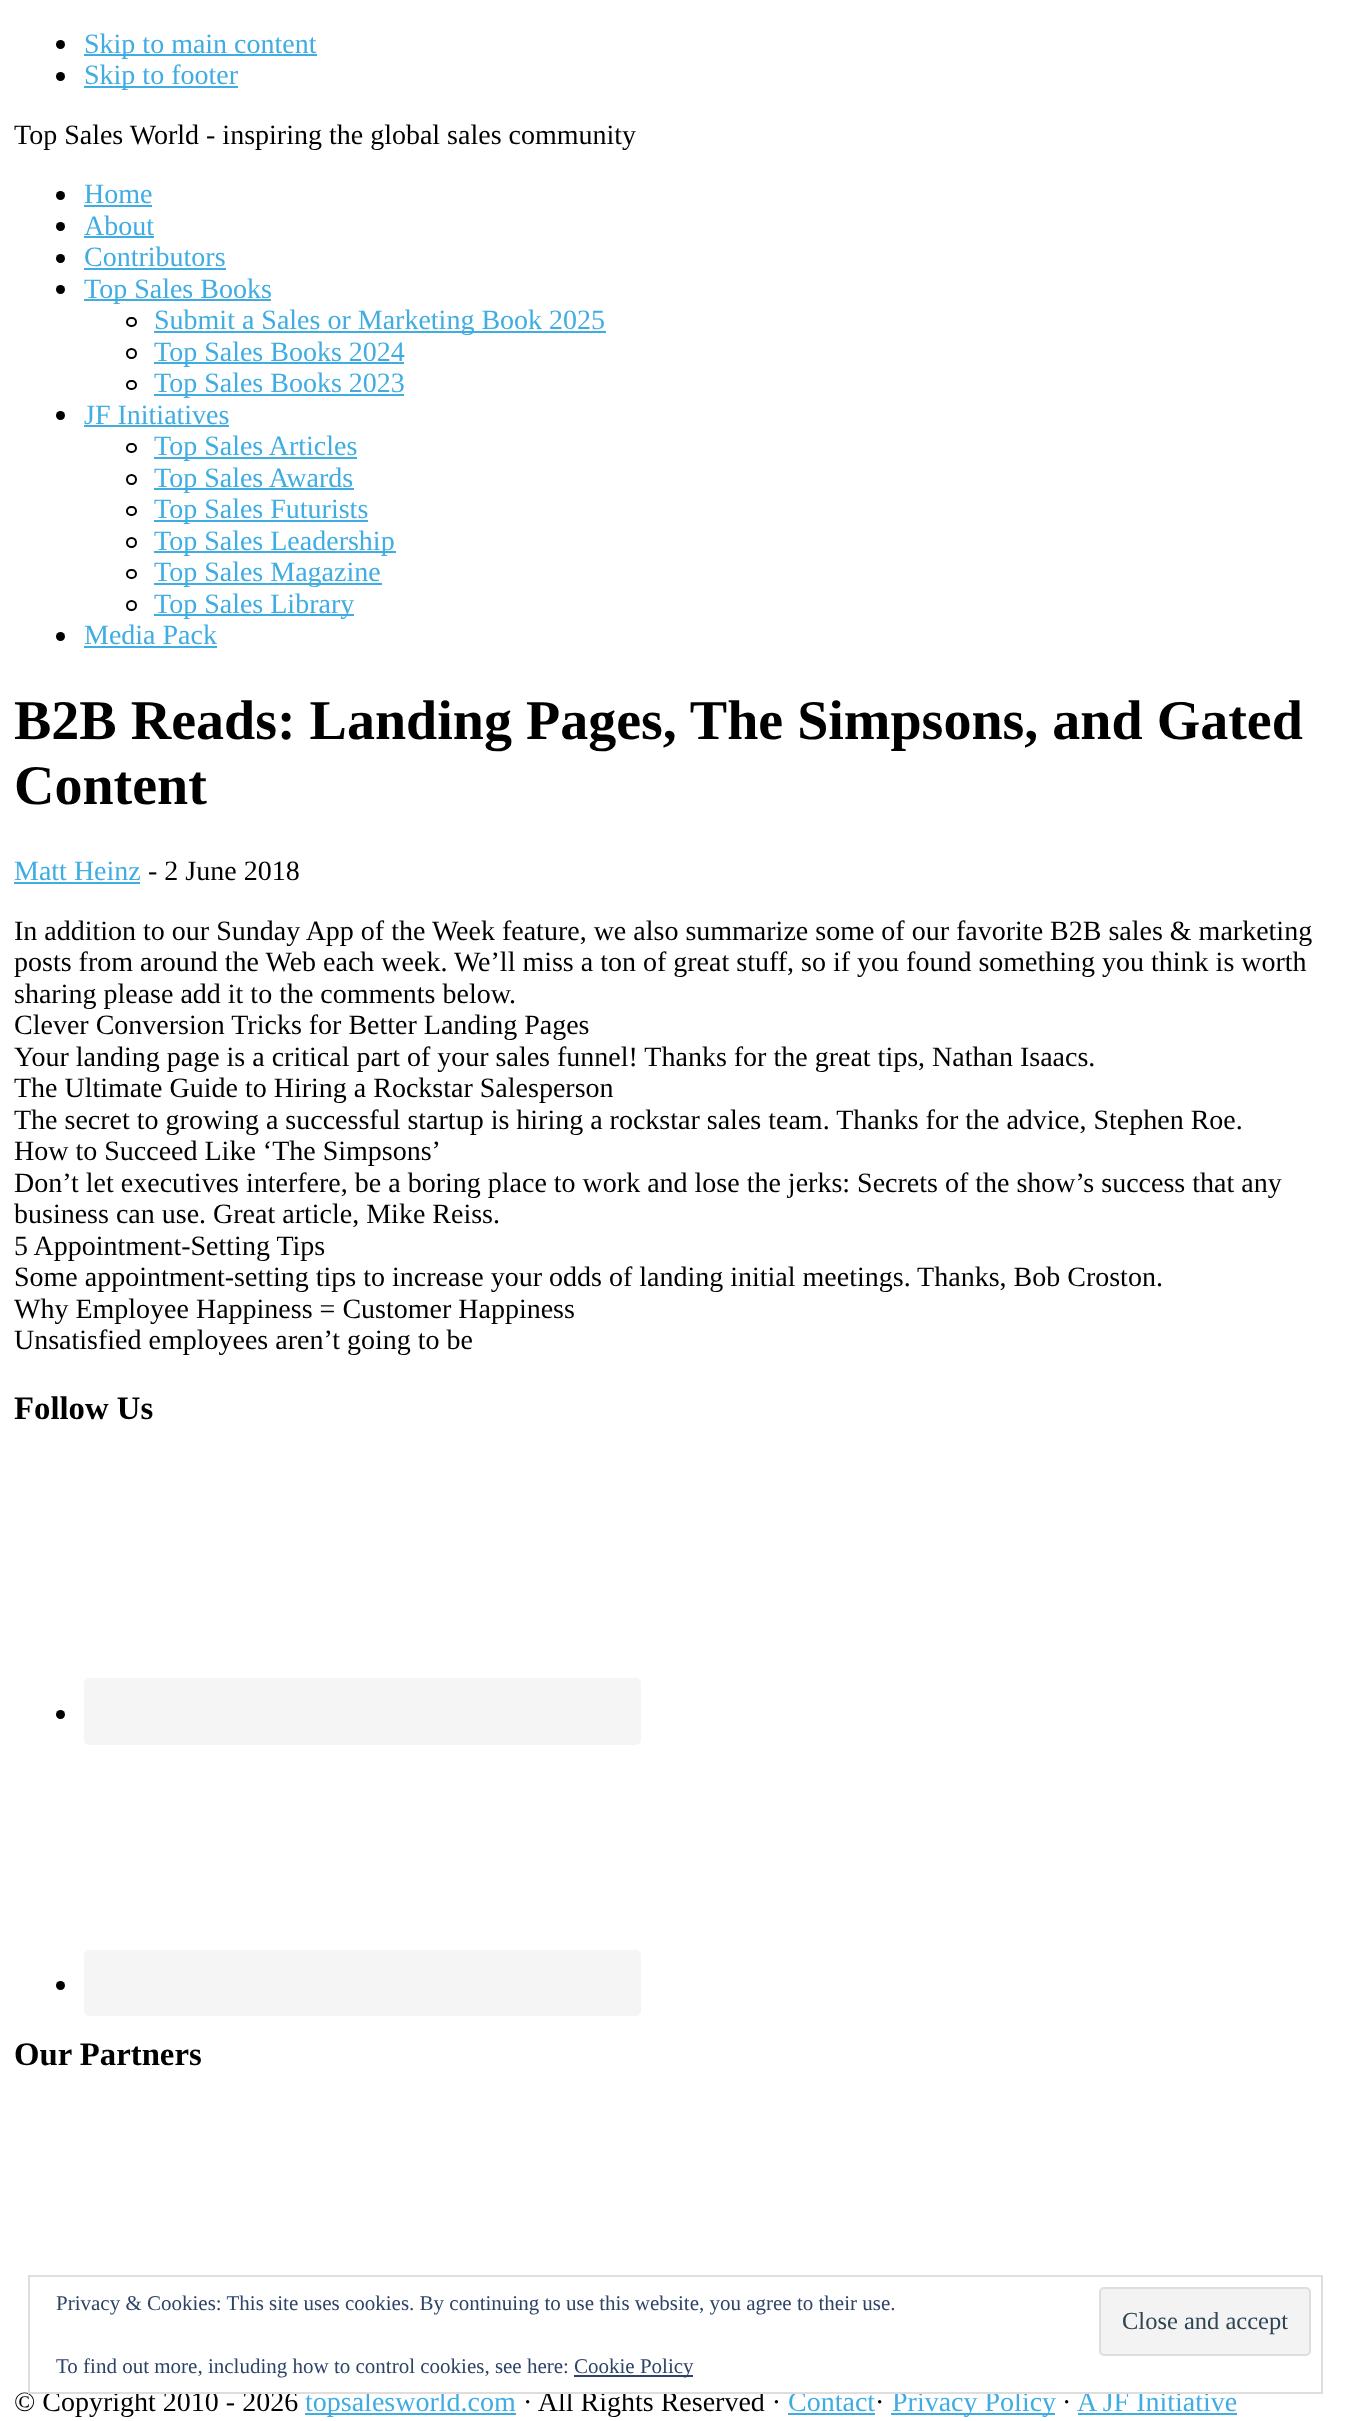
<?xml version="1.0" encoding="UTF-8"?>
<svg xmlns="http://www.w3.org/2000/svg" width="1350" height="2421">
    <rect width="100%" height="100%" fill="#FFFFFF"/>
    <circle cx="60.5" cy="44.5" r="4.5" fill="#000000"/>
    <rect x="84" y="54" width="233" height="2" fill="#3FACE2"/>
    <text x="84" y="53" font-family="Liberation Serif" font-size="28" fill="#3FACE2">Skip to main content</text>
    <circle cx="60.5" cy="76.5" r="4.5" fill="#000000"/>
    <rect x="84" y="86" width="154" height="2" fill="#3FACE2"/>
    <text x="84" y="84" font-family="Liberation Serif" font-size="28" fill="#3FACE2">Skip to footer</text>
    <text x="14" y="144" font-family="Liberation Serif" font-size="28" fill="#000000">Top Sales World - inspiring the global sales community</text>
    <circle cx="60.5" cy="195.5" r="4.5" fill="#000000"/>
    <text x="84" y="203" font-family="Liberation Serif" font-size="28" fill="#3FACE2">Home</text>
    <rect x="84" y="205" width="68" height="2" fill="#3FACE2"/>
    <circle cx="60.5" cy="226.5" r="4.5" fill="#000000"/>
    <text x="84" y="235" font-family="Liberation Serif" font-size="28" fill="#3FACE2">About</text>
    <rect x="84" y="236" width="70" height="2" fill="#3FACE2"/>
    <circle cx="60.5" cy="258.5" r="4.5" fill="#000000"/>
    <text x="84" y="266" font-family="Liberation Serif" font-size="28" fill="#3FACE2">Contributors</text>
    <rect x="84" y="268" width="142" height="2" fill="#3FACE2"/>
    <circle cx="60.5" cy="289.5" r="4.5" fill="#000000"/>
    <rect x="84" y="299" width="187" height="2" fill="#3FACE2"/>
    <text x="84" y="298" font-family="Liberation Serif" font-size="28" fill="#3FACE2">Top Sales Books</text>
    <rect x="127" y="318" width="9" height="8" rx="4" fill="none" stroke="#000000" stroke-width="2"/>
    <rect x="154" y="331" width="452" height="2" fill="#3FACE2"/>
    <text x="154" y="329" font-family="Liberation Serif" font-size="28" fill="#3FACE2">Submit a Sales or Marketing Book 2025</text>
    <circle cx="131.5" cy="353.5" r="4.5" fill="none" stroke="#000000" stroke-width="2"/>
    <rect x="154" y="362" width="250" height="2" fill="#3FACE2"/>
    <text x="154" y="361" font-family="Liberation Serif" font-size="28" fill="#3FACE2">Top Sales Books 2024</text>
    <rect x="127" y="381" width="9" height="8" rx="4" fill="none" stroke="#000000" stroke-width="2"/>
    <rect x="154" y="394" width="250" height="2" fill="#3FACE2"/>
    <text x="154" y="392" font-family="Liberation Serif" font-size="28" fill="#3FACE2">Top Sales Books 2023</text>
    <circle cx="60.5" cy="415.5" r="4.5" fill="#000000"/>
    <text x="84" y="424" font-family="Liberation Serif" font-size="28" fill="#3FACE2">JF Initiatives</text>
    <rect x="84" y="425" width="145" height="2" fill="#3FACE2"/>
    <rect x="127" y="444" width="9" height="8" rx="4" fill="none" stroke="#000000" stroke-width="2"/>
    <rect x="154" y="457" width="203" height="2" fill="#3FACE2"/>
    <text x="154" y="455" font-family="Liberation Serif" font-size="28" fill="#3FACE2">Top Sales Articles</text>
    <circle cx="131.5" cy="479.5" r="4.5" fill="none" stroke="#000000" stroke-width="2"/>
    <rect x="154" y="488" width="200" height="2" fill="#3FACE2"/>
    <text x="154" y="487" font-family="Liberation Serif" font-size="28" fill="#3FACE2">Top Sales Awards</text>
    <rect x="127" y="507" width="9" height="8" rx="4" fill="none" stroke="#000000" stroke-width="2"/>
    <rect x="154" y="520" width="214" height="2" fill="#3FACE2"/>
    <text x="154" y="518" font-family="Liberation Serif" font-size="28" fill="#3FACE2">Top Sales Futurists</text>
    <circle cx="131.5" cy="542.5" r="4.5" fill="none" stroke="#000000" stroke-width="2"/>
    <rect x="154" y="551" width="242" height="2" fill="#3FACE2"/>
    <text x="154" y="550" font-family="Liberation Serif" font-size="28" fill="#3FACE2">Top Sales Leadership</text>
    <rect x="127" y="570" width="9" height="8" rx="4" fill="none" stroke="#000000" stroke-width="2"/>
    <rect x="154" y="583" width="228" height="2" fill="#3FACE2"/>
    <text x="154" y="581" font-family="Liberation Serif" font-size="28" fill="#3FACE2">Top Sales Magazine</text>
    <circle cx="131.5" cy="605.5" r="4.5" fill="none" stroke="#000000" stroke-width="2"/>
    <rect x="154" y="614" width="200" height="2" fill="#3FACE2"/>
    <text x="154" y="613" font-family="Liberation Serif" font-size="28" fill="#3FACE2">Top Sales Library</text>
    <circle cx="60.5" cy="636.5" r="4.5" fill="#000000"/>
    <text x="84" y="644" font-family="Liberation Serif" font-size="28" fill="#3FACE2">Media Pack</text>
    <rect x="84" y="646" width="133" height="2" fill="#3FACE2"/>
    <text font-family="Liberation Serif" font-size="56" font-weight="700" fill="#000000">
        <tspan x="14" y="739">B2B Reads: Landing Pages, The Simpsons, and Gated</tspan>
        <tspan x="14" y="804">Content</tspan>
    </text>
    <text x="14" y="880" font-family="Liberation Serif" font-size="28" fill="#3FACE2">Matt Heinz</text>
    <rect x="14" y="882" width="126" height="2" fill="#3FACE2"/>
    <text x="148" y="880" font-family="Liberation Serif" font-size="28" fill="#000000">- 2 June 2018</text>
    <text font-family="Liberation Serif" font-size="28" fill="#000000">
        <tspan x="14" y="940">In addition to our Sunday App of the Week feature, we also summarize some of our favorite B2B sales &amp; marketing</tspan>
        <tspan x="14" y="971">posts from around the Web each week. We’ll miss a ton of great stuff, so if you found something you think is worth</tspan>
        <tspan x="14" y="1003">sharing please add it to the comments below.</tspan>
        <tspan x="14" y="1034">Clever Conversion Tricks for Better Landing Pages</tspan>
        <tspan x="14" y="1066">Your landing page is a critical part of your sales funnel! Thanks for the great tips, Nathan Isaacs.</tspan>
        <tspan x="14" y="1097">The Ultimate Guide to Hiring a Rockstar Salesperson</tspan>
        <tspan x="14" y="1129">The secret to growing a successful startup is hiring a rockstar sales team. Thanks for the advice, Stephen Roe.</tspan>
        <tspan x="14" y="1160">How to Succeed Like ‘The Simpsons’</tspan>
        <tspan x="14" y="1192">Don’t let executives interfere, be a boring place to work and lose the jerks: Secrets of the show’s success that any</tspan>
        <tspan x="14" y="1223">business can use. Great article, Mike Reiss.</tspan>
        <tspan x="14" y="1255">5 Appointment-Setting Tips</tspan>
        <tspan x="14" y="1286">Some appointment-setting tips to increase your odds of landing initial meetings. Thanks, Bob Croston.</tspan>
        <tspan x="14" y="1318">Why Employee Happiness = Customer Happiness</tspan>
        <tspan x="14" y="1349">Unsatisfied employees aren’t going to be</tspan>
    </text>
    <text x="14" y="1419" font-family="Liberation Serif" font-size="32.75" font-weight="700" fill="#000000">Follow Us</text>
    <circle cx="60.5" cy="1714.5" r="4.5" fill="#000000"/>
    <rect x="84" y="1678" width="557" height="67" rx="5" fill="#F5F5F5"/>
    <circle cx="60.5" cy="1985.5" r="4.5" fill="#000000"/>
    <rect x="84" y="1950" width="557" height="66" rx="5" fill="#F5F5F5"/>
    <text x="14" y="2065" font-family="Liberation Serif" font-size="32.75" font-weight="700" fill="#000000">Our Partners</text>
    <text x="14" y="2411" font-family="Liberation Serif" font-size="28" fill="#000000">© Copyright 2010 - 2026</text>
    <rect x="305" y="2413" width="211" height="2" fill="#3FACE2"/>
    <text x="305" y="2411" font-family="Liberation Serif" font-size="28" fill="#3FACE2">topsalesworld.com</text>
    <text x="523" y="2411" font-family="Liberation Serif" font-size="28" fill="#000000">· All Rights Reserved ·</text>
    <text x="788" y="2411" font-family="Liberation Serif" font-size="28" fill="#3FACE2">Contact</text>
    <rect x="788" y="2413" width="87" height="2" fill="#3FACE2"/>
    <text x="875" y="2411" font-family="Liberation Serif" font-size="28" fill="#000000">·</text>
    <rect x="891" y="2413" width="164" height="2" fill="#3FACE2"/>
    <text x="892" y="2411" font-family="Liberation Serif" font-size="28" fill="#3FACE2">Privacy Policy</text>
    <text x="1062" y="2411" font-family="Liberation Serif" font-size="28" fill="#000000">·</text>
    <text x="1077" y="2411" font-family="Liberation Serif" font-size="28" fill="#3FACE2">A JF Initiative</text>
    <rect x="1078" y="2413" width="159" height="2" fill="#3FACE2"/>
    <rect x="134" y="2391" width="885" height="1" fill="#FFFFFF"/>
    <rect x="29" y="2276" width="1293" height="117" fill="none" stroke="#DEDEDE" stroke-width="2"/>
    <text x="56" y="2310" font-family="Liberation Serif" font-size="21" fill="#2E4467">Privacy &amp; Cookies: This site uses cookies. By continuing to use this website, you agree to their use.</text>
    <rect x="1100" y="2288" width="210" height="67" rx="4" fill="#F3F3F3" stroke="#DEDEDE" stroke-width="2"/>
    <text x="1122" y="2329" font-family="Liberation Serif" font-size="24.5" fill="#2E4453">Close and accept</text>
    <text x="56" y="2373" font-family="Liberation Serif" font-size="21" fill="#2E4467">To find out more, including how to control cookies, see here:</text>
    <rect x="574" y="2375" width="119" height="2" fill="#2E4467"/>
    <text x="574" y="2373" font-family="Liberation Serif" font-size="21" fill="#2E4467">Cookie Policy</text>
</svg>
